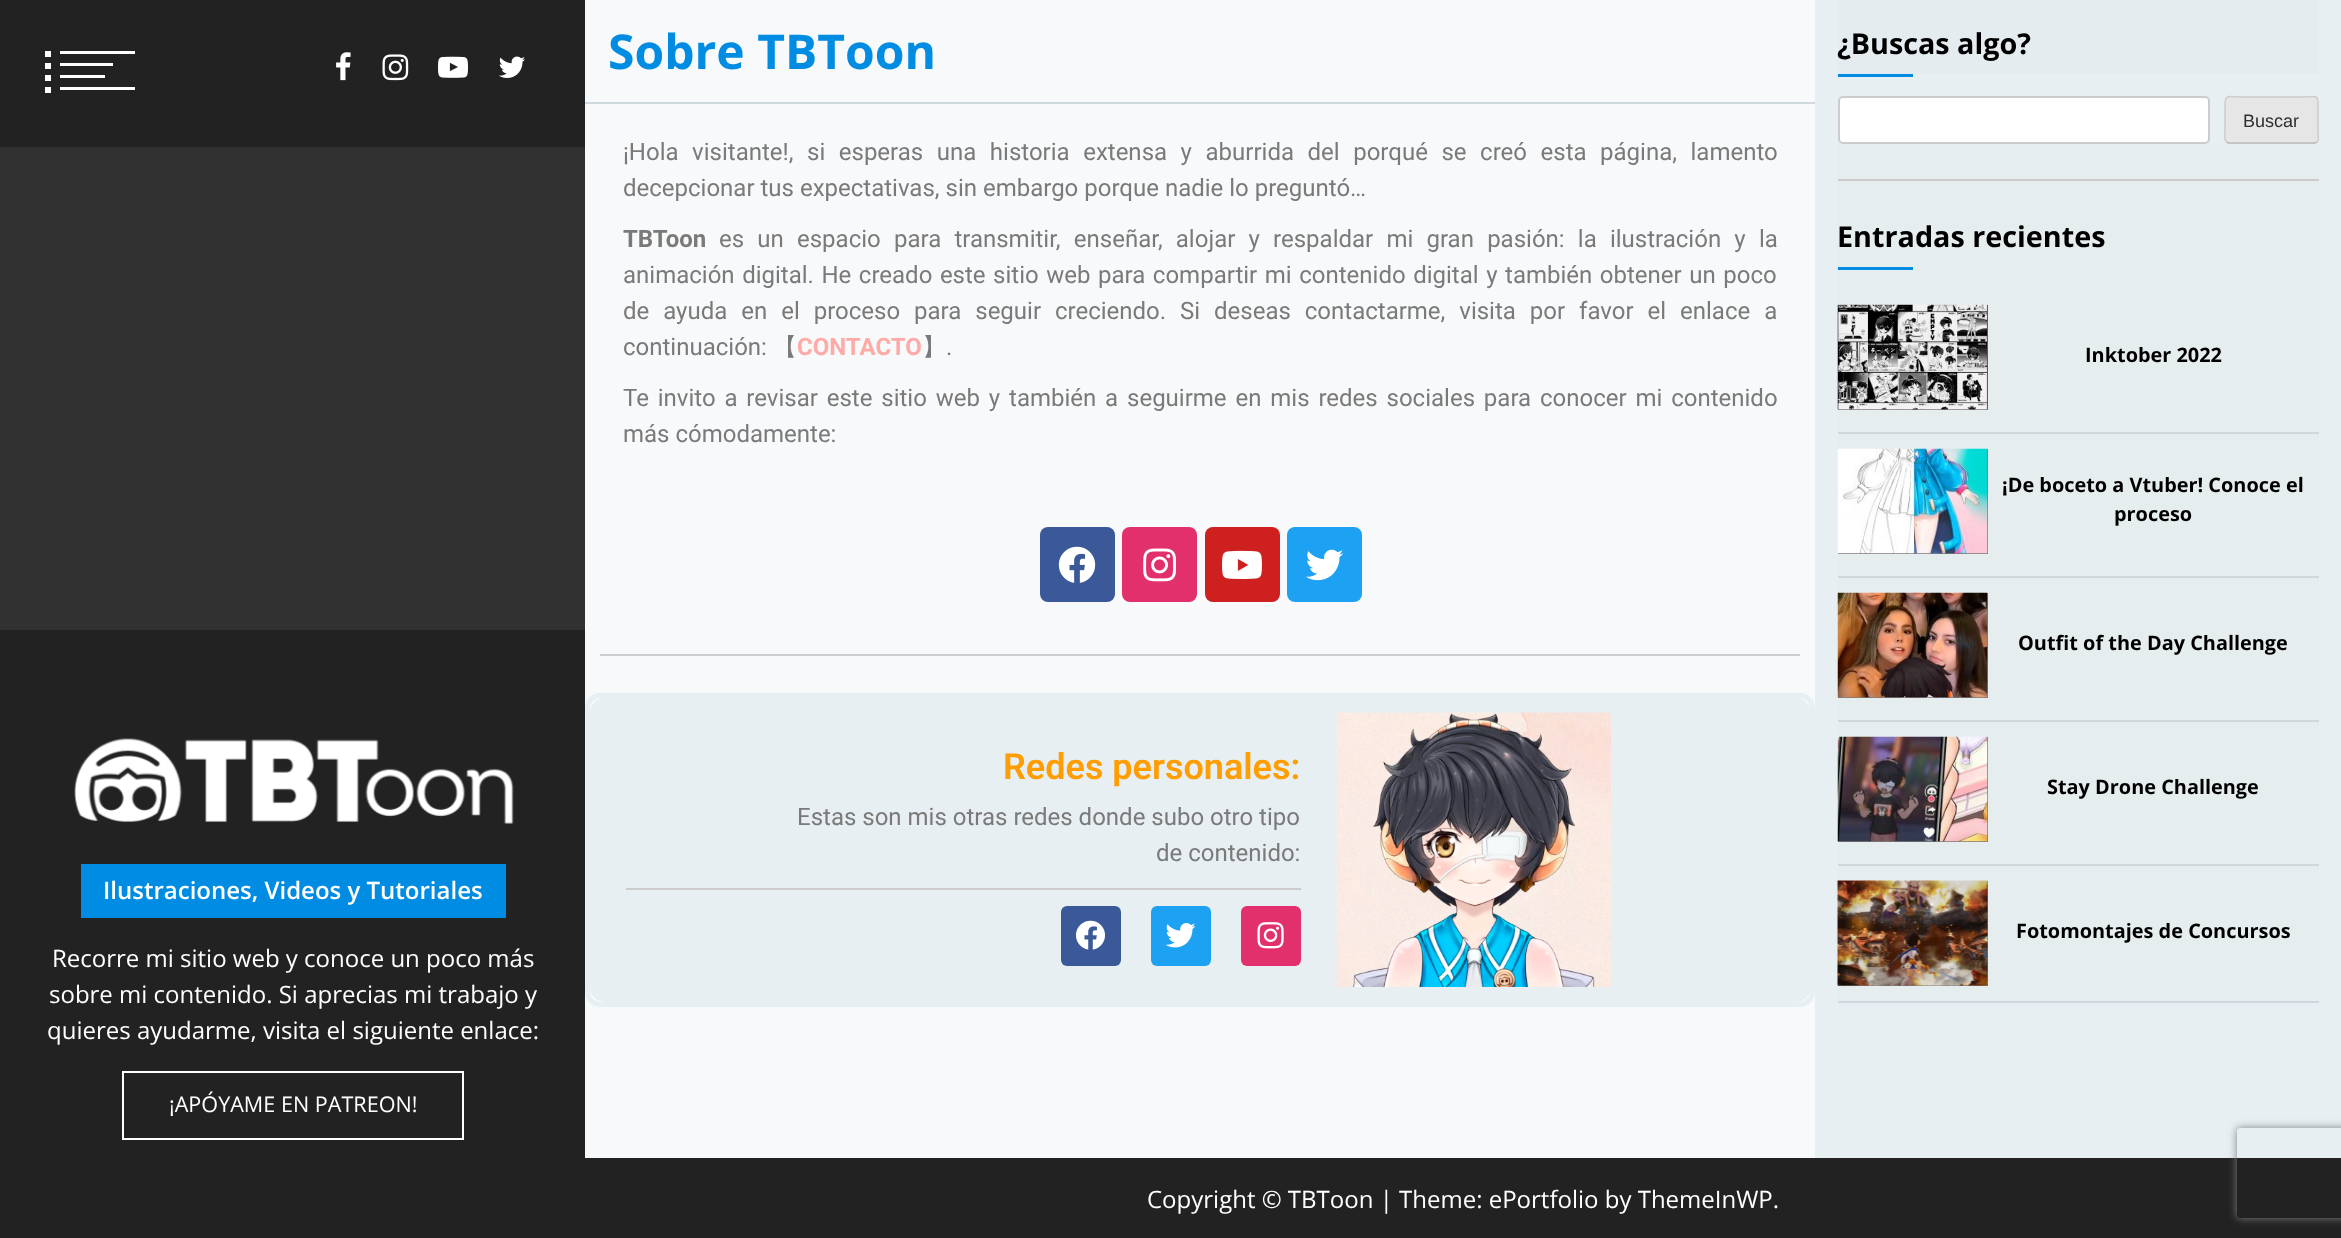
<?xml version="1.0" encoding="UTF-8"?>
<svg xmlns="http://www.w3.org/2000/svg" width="2341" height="1238">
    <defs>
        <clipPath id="clip1"><path d="M 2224 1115 H 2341 V 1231 H 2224 Z M 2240 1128 H 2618 C 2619.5 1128 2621 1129.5 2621 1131 V 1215 C 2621 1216.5 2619.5 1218 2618 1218 H 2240 C 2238.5 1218 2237 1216.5 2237 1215 V 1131 C 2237 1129.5 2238.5 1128 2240 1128 Z" clip-rule="evenodd"/></clipPath>
        <filter id="blur1" x="-50%" y="-200%" width="200%" height="500%"><feGaussianBlur stdDeviation="4"/></filter>
    </defs>
    <rect width="100%" height="100%" fill="#222222"/>
    <rect x="585" y="0" width="1230" height="1158" fill="#F8F9FA"/>
    <rect x="585" y="102" width="1230" height="2" fill="#CFD8DC"/>
    <text x="608" y="69" font-family="Open Sans" font-size="48" font-weight="700" fill="#008CE3">Sobre TBToon</text>
    <text font-family="Roboto" font-size="24" fill="#7A7A7A">
        <tspan x="623" y="160" word-spacing="7.6">¡Hola visitante!, si esperas una historia extensa y aburrida del porqué se creó esta página, lamento</tspan>
        <tspan x="623" y="196">decepcionar tus expectativas, sin embargo porque nadie lo preguntó…</tspan>
    </text>
    <text x="623" y="247" font-family="Roboto" font-size="24" font-weight="700" fill="#7A7A7A">TBToon</text>
    <text x="719" y="247" word-spacing="7.25" font-family="Roboto" font-size="24" fill="#7A7A7A">es un espacio para transmitir, enseñar, alojar y respaldar mi gran pasión: la ilustración y la</text>
    <text font-family="Roboto" font-size="24" fill="#7A7A7A">
        <tspan x="623" y="283" word-spacing="1.6">animación digital. He creado este sitio web para compartir mi contenido digital y también obtener un poco</tspan>
        <tspan x="623" y="319" word-spacing="8">de ayuda en el proceso para seguir creciendo.</tspan>
    </text>
    <text x="1180" y="319" word-spacing="8" font-family="Roboto" font-size="24" fill="#7A7A7A">Si deseas contactarme, visita por favor el enlace a</text>
    <text x="623" y="355" font-family="Roboto" font-size="24" fill="#7A7A7A">continuación:</text>
    <text x="773" y="355" font-family="WenQuanYi Zen Hei" font-size="24" font-weight="500" fill="#7A7A7A">【</text>
    <text x="797" y="355" font-family="Roboto" font-size="24" font-weight="700" fill="#FFAAA6">CONTACTO</text>
    <text x="922" y="355" font-family="WenQuanYi Zen Hei" font-size="24" font-weight="500" fill="#7A7A7A">】</text>
    <text x="946" y="355" font-family="Roboto" font-size="24" fill="#7A7A7A">.</text>
    <text font-family="Roboto" font-size="24" fill="#7A7A7A">
        <tspan x="623" y="406" word-spacing="2.9">Te invito a revisar este sitio web y también a seguirme en mis redes sociales para conocer mi contenido</tspan>
        <tspan x="623" y="442">más cómodamente:</tspan>
    </text>
    <rect x="1040" y="527" width="75" height="75" rx="8" fill="#3B5998"/>
    <image x="1058" y="546" width="38" height="37" href="img_01.png"/>
    <rect x="1122" y="527" width="75" height="75" rx="8" fill="#E1306C"/>
    <image x="1143" y="548" width="33" height="34" href="img_02.png"/>
    <rect x="1205" y="527" width="75" height="75" rx="8" fill="#CD201F"/>
    <image x="1222" y="550" width="40" height="29" href="img_03.png"/>
    <rect x="1287" y="527" width="75" height="75" rx="8" fill="#1DA1F2"/>
    <image x="1306" y="549" width="38" height="32" href="img_04.png"/>
    <rect x="600" y="654" width="1200" height="2" fill="#CCCCCC"/>
    <rect x="587.5" y="695.5" width="1225" height="309" rx="12.5" fill="none" stroke="#E7EFF2" stroke-width="5"/>
    <rect x="590" y="698" width="1221" height="304" rx="15" fill="#E7EFF2"/>
    <text x="1003" y="779" font-family="Roboto" font-size="36" font-weight="600" fill="#FF9D01">Redes personales:</text>
    <text x="797" y="825" font-family="Roboto" font-size="24" fill="#7A7A7A">Estas son mis otras redes donde subo otro tipo</text>
    <text x="1156" y="861" font-family="Roboto" font-size="24" fill="#7A7A7A">de contenido:</text>
    <rect x="626" y="888" width="675" height="2" fill="#CCCCCC"/>
    <rect x="1061" y="906" width="60" height="60" rx="6" fill="#3B5998"/>
    <image x="1076" y="920" width="29" height="30" href="img_05.png"/>
    <rect x="1151" y="906" width="60" height="60" rx="6" fill="#1DA1F2"/>
    <image x="1165" y="923" width="31" height="25" href="img_06.png"/>
    <rect x="1241" y="906" width="60" height="60" rx="6" fill="#E1306C"/>
    <image x="1257" y="922" width="27" height="27" href="img_07.png"/>
    <image x="1336" y="712" width="275" height="275" href="img_08.png"/>
    <rect x="1815" y="0" width="526" height="1158" fill="#E7EFF2"/>
    <rect x="1838" y="0" width="481" height="74" fill="#E5ECEF"/>
    <text x="1837" y="54" font-family="Open Sans" font-size="28.75" font-weight="700" fill="#000000">¿Buscas algo?</text>
    <rect x="1838" y="74" width="75" height="3" fill="#008CE3"/>
    <rect x="1839" y="97" width="370" height="46" rx="4" fill="#FFFFFF" stroke="#CCCCCC" stroke-width="2"/>
    <rect x="2225" y="96" width="94" height="48" rx="5" fill="#E6E6E6"/>
    <path d="M 2317 142 L 2315 143 H 2228.5 L 2226.5 142" fill="none" stroke="#BBBBBB" stroke-width="1.5"/>
    <path d="M 2226.5 142 C 2224 140 2225 135 2225 133 V 107 C 2225 93 2226.5 97 2243 97 H 2300 C 2317 97 2318 93 2318 107 V 133 C 2318 135 2319.5 140 2317 142" fill="none" stroke="#CCCCCC" stroke-width="1.5"/>
    <text x="2243" y="127" font-family="Liberation Sans" font-size="18" fill="#2E2E2E">Buscar</text>
    <rect x="1838" y="144" width="481" height="857" fill="#E6EDEE"/>
    <rect x="1838" y="179" width="481" height="2" fill="#CCCCCC"/>
    <text x="1837" y="247" font-family="Open Sans" font-size="28.75" font-weight="700" fill="#000000">Entradas recientes</text>
    <rect x="1838" y="267" width="75" height="3" fill="#008CE3"/>
    <rect x="1838" y="1001" width="481" height="2" fill="#CFD8DC"/>
    <rect x="1838" y="305" width="150" height="105" fill="#7B7B7B"/>
    <image x="1837" y="304" width="151" height="106" href="img_09.png"/>
    <text x="2085" y="362" font-family="Open Sans" font-size="19.9" font-weight="700" fill="#000000">Inktober 2022</text>
    <rect x="1838" y="432" width="481" height="2" fill="#CFD8DC"/>
    <rect x="1838" y="449" width="150" height="105" fill="#7B7B7B"/>
    <image x="1837" y="448" width="151" height="106" href="img_10.png"/>
    <text x="2002" y="492" font-family="Open Sans" font-size="19.9" font-weight="700" fill="#000000">¡De boceto a Vtuber! Conoce el</text>
    <text x="2114" y="521" font-family="Open Sans" font-size="19.9" font-weight="700" fill="#000000">proceso</text>
    <rect x="1838" y="576" width="481" height="2" fill="#CFD8DC"/>
    <rect x="1838" y="593" width="150" height="105" fill="#7B7B7B"/>
    <image x="1837" y="592" width="151" height="106" href="img_11.png"/>
    <text x="2018" y="650" font-family="Open Sans" font-size="19.9" font-weight="700" fill="#000000">Outfit of the Day Challenge</text>
    <rect x="1838" y="720" width="481" height="2" fill="#CFD8DC"/>
    <rect x="1838" y="737" width="150" height="105" fill="#7B7B7B"/>
    <image x="1837" y="736" width="151" height="106" href="img_12.png"/>
    <text x="2047" y="794" font-family="Open Sans" font-size="19.9" font-weight="700" fill="#000000">Stay Drone Challenge</text>
    <rect x="1838" y="864" width="481" height="2" fill="#CFD8DC"/>
    <rect x="1838" y="881" width="150" height="105" fill="#7B7B7B"/>
    <image x="1837" y="880" width="151" height="106" href="img_13.png"/>
    <text x="2016" y="938" font-family="Open Sans" font-size="19.9" font-weight="700" fill="#000000">Fotomontajes de Concursos</text>
    <rect x="45" y="51" width="6" height="6" fill="#FFFFFF"/>
    <rect x="60" y="51" width="75" height="3" fill="#FFFFFF"/>
    <rect x="45" y="63" width="6" height="6" fill="#FFFFFF"/>
    <rect x="60" y="63" width="53" height="3" fill="#FFFFFF"/>
    <rect x="45" y="75" width="6" height="6" fill="#FFFFFF"/>
    <rect x="60" y="75" width="45" height="3" fill="#FFFFFF"/>
    <rect x="45" y="87" width="6" height="6" fill="#FFFFFF"/>
    <rect x="60" y="87" width="75" height="3" fill="#FFFFFF"/>
    <image x="336" y="52" width="15" height="29" href="img_14.png"/>
    <image x="382" y="54" width="27" height="27" href="img_15.png"/>
    <image x="438" y="56" width="30" height="22" href="img_16.png"/>
    <image x="499" y="56" width="26" height="22" href="img_17.png"/>
    <rect x="0" y="147" width="585" height="483" fill="#313131"/>
    <image x="74" y="738" width="440" height="86" href="img_18.png"/>
    <rect x="81" y="864" width="425" height="54" fill="#008CE3"/>
    <text x="103" y="899" font-family="Open Sans" font-size="24" font-weight="600" fill="#FFFFFF">Ilustraciones, Videos y Tutoriales</text>
    <text x="52" y="967" font-family="Open Sans" font-size="24" fill="#FFFFFF">Recorre mi sitio web y conoce un poco más</text>
    <text x="49" y="1003" font-family="Open Sans" font-size="24" fill="#FFFFFF">sobre mi contenido. Si aprecias mi trabajo y</text>
    <text x="47" y="1039" font-family="Open Sans" font-size="24" fill="#FFFFFF">quieres ayudarme, visita el siguiente enlace:</text>
    <rect x="123" y="1072" width="340" height="67" fill="none" stroke="#FFFFFF" stroke-width="2"/>
    <text x="169" y="1112" font-family="Open Sans" font-size="21.6" fill="#FFFFFF">¡APÓYAME EN PATREON!</text>
    <text x="1147" y="1208" font-family="Open Sans" font-size="24" fill="#FFFFFF">Copyright © TBToon | Theme: ePortfolio by ThemeInWP.</text>
    <g clip-path="url(#clip1)">
        <rect x="2237" y="1128" width="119" height="90" rx="3" fill="#808080" filter="url(#blur1)"/>
    </g>
</svg>
